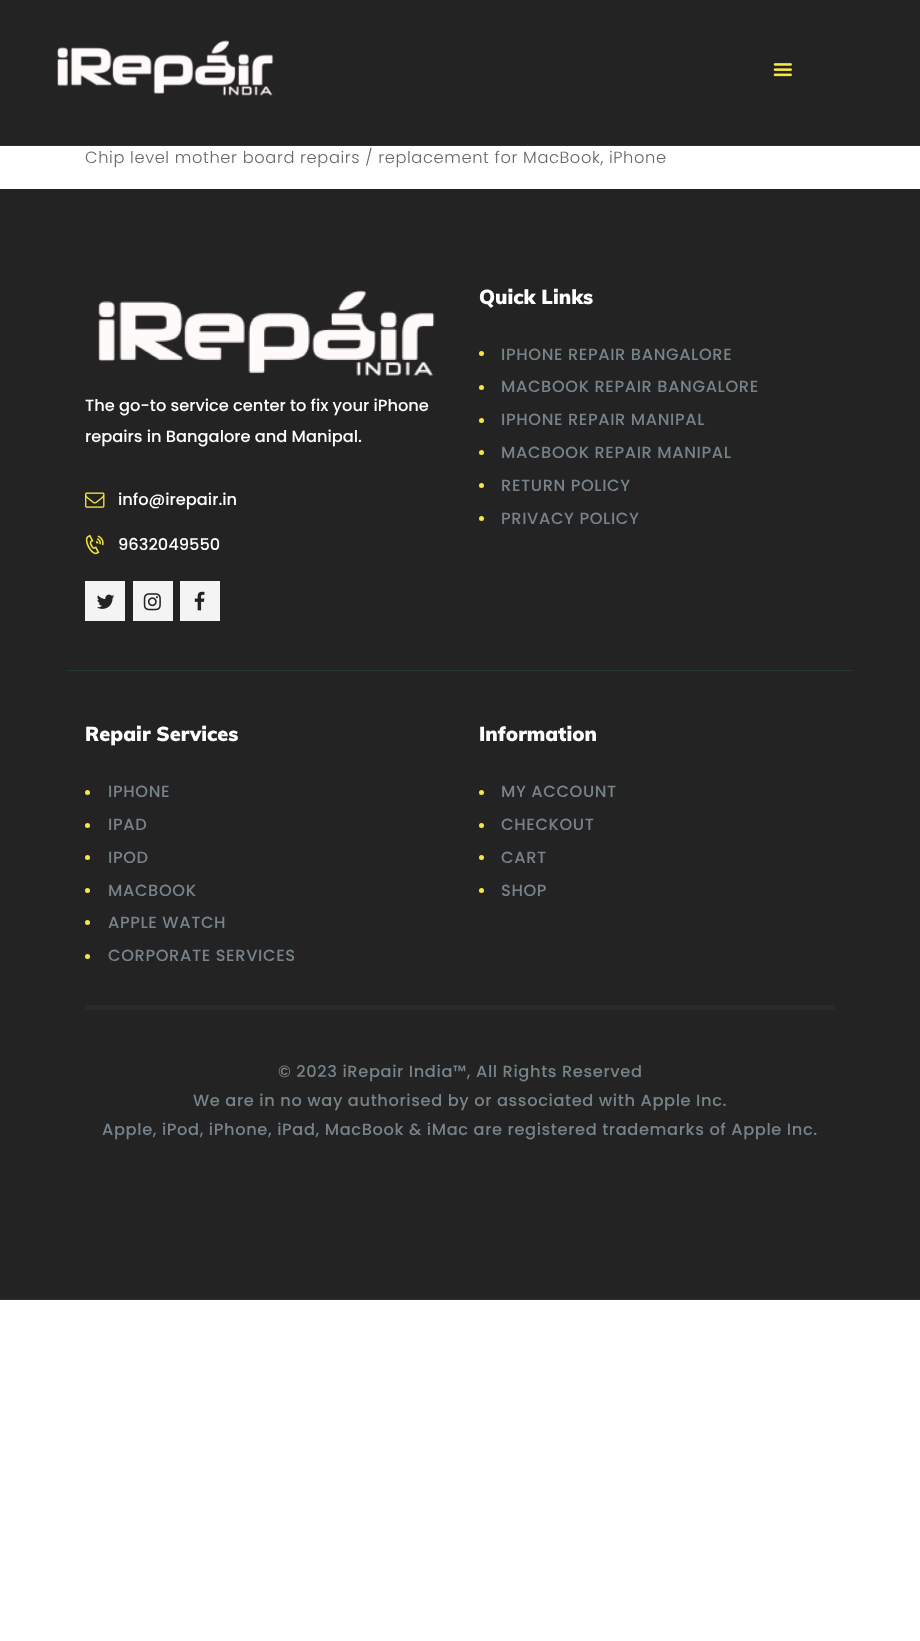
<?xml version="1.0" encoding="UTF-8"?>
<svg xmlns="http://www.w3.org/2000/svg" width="920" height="1641">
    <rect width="100%" height="100%" fill="#FFFFFF"/>
    <rect x="0" y="0" width="920" height="145" fill="#232323"/>
    <rect x="0" y="145" width="920" height="1" fill="#2E2C33"/>
    <image x="57" y="40" width="217" height="56" href="img_01.png"/>
    <image x="773" y="63" width="19" height="14" href="img_02.png"/>
    <text x="85" y="163" font-family="Poppins" font-size="16.25" font-weight="300" letter-spacing="0.62" fill="#666666">Chip level mother board repairs / replacement for MacBook, iPhone</text>
    <rect x="0" y="189" width="920" height="1110" fill="#232323"/>
    <rect x="0" y="1299" width="920" height="1" fill="#263437"/>
    <image x="98" y="290" width="337" height="86" href="img_03.png"/>
    <text font-family="Poppins" font-size="16.25" font-weight="500" fill="#FFFFFF">
        <tspan x="85" y="411">The go-to service center to fix your iPhone</tspan>
        <tspan x="85" y="442">repairs in Bangalore and Manipal.</tspan>
    </text>
    <image x="85" y="492" width="20" height="16" href="img_04.png"/>
    <text x="118" y="505" font-family="Poppins" font-size="16.25" font-weight="500" fill="#FFFFFF">info@irepair.in</text>
    <image x="85" y="534" width="19" height="21" href="img_05.png"/>
    <text x="118" y="550" font-family="Poppins" font-size="16.25" font-weight="500" fill="#FFFFFF">9632049550</text>
    <rect x="85" y="581" width="40" height="40" fill="#F4F4F4"/>
    <image x="97" y="594" width="18" height="15" href="img_06.png"/>
    <rect x="133" y="581" width="40" height="40" fill="#F4F4F4"/>
    <image x="143" y="593" width="18" height="18" href="img_07.png"/>
    <rect x="180" y="581" width="40" height="40" fill="#F4F4F4"/>
    <image x="194" y="591" width="11" height="20" href="img_08.png"/>
    <text x="479" y="304" font-family="Muli" font-size="20" font-weight="900" fill="#FFFFFF">Quick Links</text>
    <circle cx="481.5" cy="353.5" r="2.5" fill="#F7E841"/>
    <text x="501" y="360" font-family="Poppins" font-size="16.25" font-weight="500" letter-spacing="0.62" fill="#788389">IPHONE REPAIR BANGALORE</text>
    <circle cx="481.5" cy="387.5" r="2.5" fill="#F7E841"/>
    <text x="501" y="392" font-family="Poppins" font-size="16.25" font-weight="500" letter-spacing="0.62" fill="#788389">MACBOOK REPAIR BANGALORE</text>
    <circle cx="481.5" cy="420.5" r="2.5" fill="#F7E841"/>
    <text x="501" y="425" font-family="Poppins" font-size="16.25" font-weight="500" letter-spacing="0.62" fill="#788389">IPHONE REPAIR MANIPAL</text>
    <circle cx="481.5" cy="452.5" r="2.5" fill="#F7E841"/>
    <text x="501" y="458" font-family="Poppins" font-size="16.25" font-weight="500" letter-spacing="0.62" fill="#788389">MACBOOK REPAIR MANIPAL</text>
    <circle cx="481.5" cy="485.5" r="2.5" fill="#F7E841"/>
    <text x="501" y="491" font-family="Poppins" font-size="16.25" font-weight="500" letter-spacing="0.62" fill="#788389">RETURN POLICY</text>
    <circle cx="481.5" cy="518.5" r="2.5" fill="#F7E841"/>
    <text x="501" y="524" font-family="Poppins" font-size="16.25" font-weight="500" letter-spacing="0.62" fill="#788389">PRIVACY POLICY</text>
    <rect x="66" y="670" width="788" height="1" fill="#263437"/>
    <text x="85" y="741" font-family="Muli" font-size="20" font-weight="900" fill="#FFFFFF">Repair Services</text>
    <circle cx="87.5" cy="792.5" r="2.5" fill="#F7E841"/>
    <text x="108" y="797" font-family="Poppins" font-size="16.25" font-weight="500" letter-spacing="0.62" fill="#788389">IPHONE</text>
    <circle cx="87.5" cy="825.5" r="2.5" fill="#F7E841"/>
    <text x="108" y="830" font-family="Poppins" font-size="16.25" font-weight="500" letter-spacing="0.62" fill="#788389">IPAD</text>
    <circle cx="87.5" cy="857.5" r="2.5" fill="#F7E841"/>
    <text x="108" y="863" font-family="Poppins" font-size="16.25" font-weight="500" letter-spacing="0.62" fill="#788389">IPOD</text>
    <circle cx="87.5" cy="890.5" r="2.5" fill="#F7E841"/>
    <text x="108" y="896" font-family="Poppins" font-size="16.25" font-weight="500" letter-spacing="0.62" fill="#788389">MACBOOK</text>
    <circle cx="87.5" cy="922.5" r="2.5" fill="#F7E841"/>
    <text x="108" y="928" font-family="Poppins" font-size="16.25" font-weight="500" letter-spacing="0.62" fill="#788389">APPLE WATCH</text>
    <circle cx="87.5" cy="956.5" r="2.5" fill="#F7E841"/>
    <text x="108" y="961" font-family="Poppins" font-size="16.25" font-weight="500" letter-spacing="0.62" fill="#788389">CORPORATE SERVICES</text>
    <text x="479" y="741" font-family="Muli" font-size="20" font-weight="900" fill="#FFFFFF">Information</text>
    <circle cx="481.5" cy="792.5" r="2.5" fill="#F7E841"/>
    <text x="501" y="797" font-family="Poppins" font-size="16.25" font-weight="500" letter-spacing="0.62" fill="#788389">MY ACCOUNT</text>
    <circle cx="481.5" cy="825.5" r="2.5" fill="#F7E841"/>
    <text x="501" y="830" font-family="Poppins" font-size="16.25" font-weight="500" letter-spacing="0.62" fill="#788389">CHECKOUT</text>
    <circle cx="481.5" cy="857.5" r="2.5" fill="#F7E841"/>
    <text x="501" y="863" font-family="Poppins" font-size="16.25" font-weight="500" letter-spacing="0.62" fill="#788389">CART</text>
    <circle cx="481.5" cy="890.5" r="2.5" fill="#F7E841"/>
    <text x="501" y="896" font-family="Poppins" font-size="16.25" font-weight="500" letter-spacing="0.62" fill="#788389">SHOP</text>
    <rect x="85" y="1005" width="750" height="5" fill="#2A2A2A"/>
    <text x="278" y="1077" font-family="Poppins" font-size="16.25" font-weight="500" letter-spacing="0.62" fill="#788389">© 2023 iRepair India™, All Rights Reserved</text>
    <text x="193" y="1106" font-family="Poppins" font-size="16.25" font-weight="500" letter-spacing="0.62" fill="#788389">We are in no way authorised by or associated with Apple Inc.</text>
    <text x="102" y="1135" font-family="Poppins" font-size="16.25" font-weight="500" letter-spacing="0.62" fill="#788389">Apple, iPod, iPhone, iPad, MacBook &amp; iMac are registered trademarks of Apple Inc.</text>
</svg>
